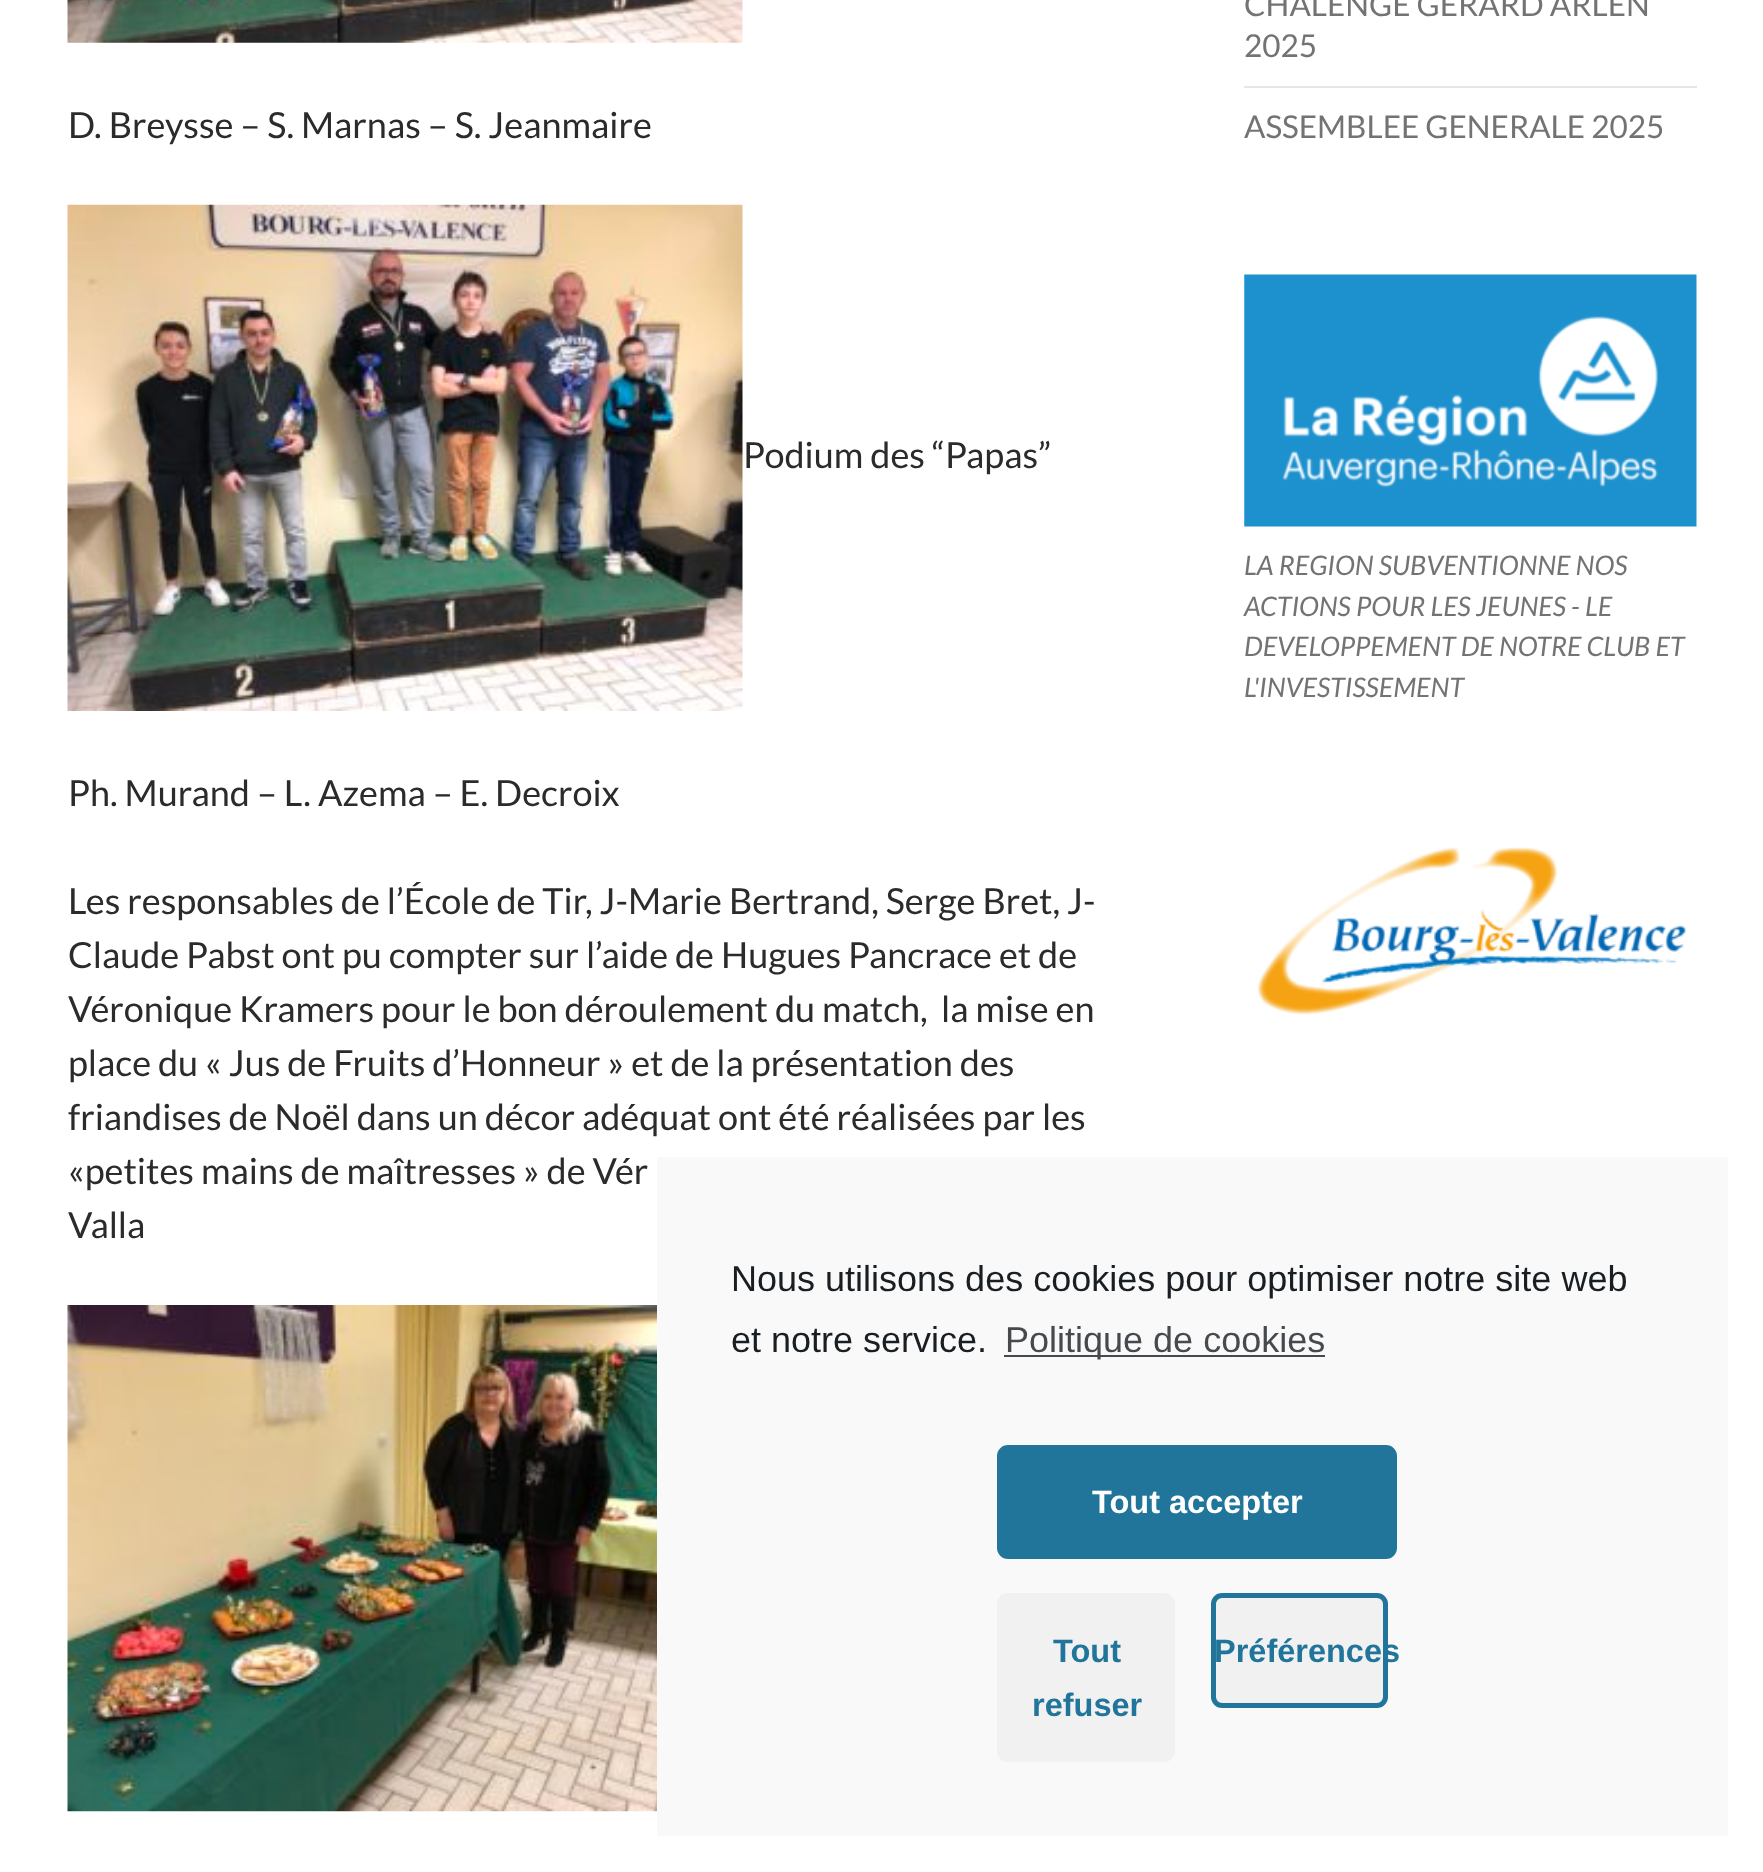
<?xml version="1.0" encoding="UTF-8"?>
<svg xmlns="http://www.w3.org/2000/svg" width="1763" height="1872">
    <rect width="100%" height="100%" fill="#FFFFFF"/>
    <image x="67" y="0" width="676" height="43" href="img_01.png"/>
    <text x="68" y="138" font-family="Lato" font-size="36" fill="#2B2B2B">D. Breysse – S. Marnas – S. Jeanmaire</text>
    <image x="67" y="204" width="676" height="507" href="img_02.png"/>
    <text x="743" y="468" font-family="Lato" font-size="36" fill="#2B2B2B">Podium des “Papas”</text>
    <text x="68" y="806" font-family="Lato" font-size="36" fill="#2B2B2B">Ph. Murand – L. Azema – E. Decroix</text>
    <text font-family="Lato" font-size="36" fill="#2B2B2B">
        <tspan x="68" y="914">Les responsables de l’École de Tir, J-Marie Bertrand, Serge Bret, J-</tspan>
        <tspan x="68" y="968">Claude Pabst ont pu compter sur l’aide de Hugues Pancrace et de</tspan>
        <tspan x="68" y="1022">Véronique Kramers pour le bon déroulement du match,</tspan>
    </text>
    <text x="941" y="1022" font-family="Lato" font-size="36" fill="#2B2B2B">la mise en</text>
    <text font-family="Lato" font-size="36" fill="#2B2B2B">
        <tspan x="68" y="1076">place du « Jus de Fruits d’Honneur » et de la présentation des</tspan>
        <tspan x="68" y="1130">friandises de Noël dans un décor adéquat ont été réalisées par les</tspan>
        <tspan x="68" y="1184">«petites mains de maîtresses » de Vér</tspan>
        <tspan x="68" y="1238">Valla</tspan>
    </text>
    <image x="67" y="1305" width="590" height="507" href="img_03.png"/>
    <text font-family="Lato" font-size="31.5" fill="#737373">
        <tspan x="1244" y="16">CHALENGE GERARD ARLEN</tspan>
        <tspan x="1244" y="57">2025</tspan>
    </text>
    <rect x="1244" y="86" width="453" height="2" fill="#E6E6E6"/>
    <text x="1244" y="138" font-family="Lato" font-size="31.5" fill="#737373">ASSEMBLEE GENERALE 2025</text>
    <image x="1244" y="274" width="453" height="253" href="img_04.png"/>
    <text font-family="Lato" font-size="27" font-style="italic" fill="#737373">
        <tspan x="1244" y="575">LA REGION SUBVENTIONNE NOS</tspan>
        <tspan x="1244" y="616">ACTIONS POUR LES JEUNES - LE</tspan>
        <tspan x="1244" y="656">DEVELOPPEMENT DE NOTRE CLUB ET</tspan>
        <tspan x="1244" y="697">L'INVESTISSEMENT</tspan>
    </text>
    <image x="1257" y="847" width="430" height="168" href="img_05.png"/>
    <rect x="657" y="1157" width="1071" height="679" fill="#F9F9F9"/>
    <text font-family="Liberation Sans" font-size="36" fill="#191E23">
        <tspan x="731" y="1291">Nous utilisons des cookies pour optimiser notre site web</tspan>
        <tspan x="731" y="1352">et notre service.</tspan>
    </text>
    <rect x="1004" y="1355" width="321" height="2" fill="#464A4E"/>
    <text x="1005" y="1352" font-family="Liberation Sans" font-size="36" fill="#464A4E">Politique de cookies</text>
    <rect x="999.5" y="1447.5" width="395" height="109" rx="8.5" fill="#21759B" stroke="#21759B" stroke-width="5"/>
    <text x="1092" y="1513" font-family="Liberation Sans" font-size="32.5" font-weight="700" fill="#FFFFFF">Tout accepter</text>
    <rect x="997" y="1593" width="178" height="169" rx="11" fill="#F1F1F1"/>
    <text x="1053" y="1662" font-family="Liberation Sans" font-size="32.5" font-weight="700" fill="#21759B">Tout</text>
    <text x="1032" y="1716" font-family="Liberation Sans" font-size="32.5" font-weight="700" fill="#21759B">refuser</text>
    <rect x="1213.5" y="1595.5" width="172" height="110" rx="8.5" fill="#F1F1F1" stroke="#21759B" stroke-width="5"/>
    <text x="1214" y="1662" font-family="Liberation Sans" font-size="32.5" font-weight="700" fill="#21759B">Préférences</text>
</svg>
